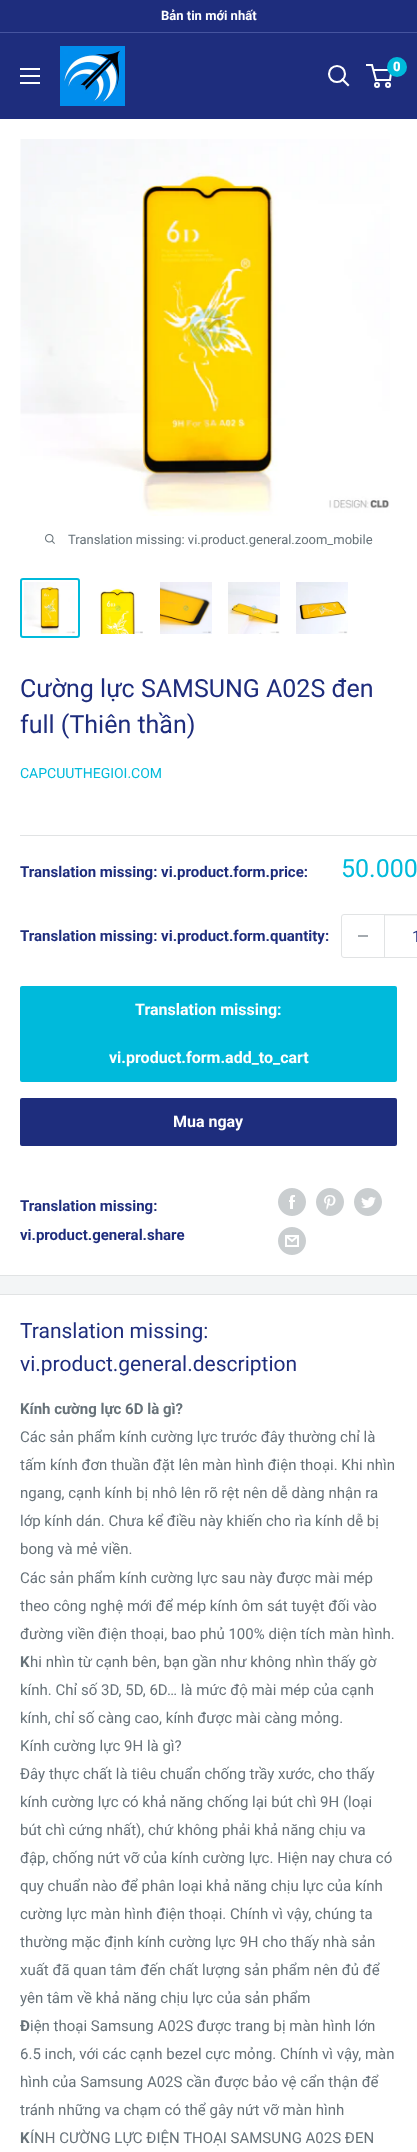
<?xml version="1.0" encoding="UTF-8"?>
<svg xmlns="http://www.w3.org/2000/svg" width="417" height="2152">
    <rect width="100%" height="100%" fill="#F3F5F6"/>
    <rect x="0" y="0" width="417" height="32" fill="#1E2D7D"/>
    <rect x="0" y="32" width="417" height="1" fill="#46549F"/>
    <text x="161" y="20" font-family="Roboto" font-size="13" font-weight="700" fill="#FFFFFF">Bản tin mới nhất</text>
    <rect x="0" y="33" width="417" height="86" fill="#1E2D7D"/>
    <image x="60" y="46" width="65" height="60" href="img_01.png"/>
    <path d="M 348 85 L 342.5 79.5" fill="none" stroke="#FFFFFF" stroke-width="2.1" stroke-linecap="square"/>
    <circle cx="337" cy="74" r="8" fill="none" stroke="#FFFFFF" stroke-width="2.1"/>
    <circle cx="377" cy="85" r="2" fill="none" stroke="#FFFFFF" stroke-width="2"/>
    <circle cx="388" cy="85" r="2" fill="none" stroke="#FFFFFF" stroke-width="2"/>
    <path d="M 373.5 70 H 391.5 L 390 80 H 376 L 372 65 H 366" fill="none" stroke="#FFFFFF" stroke-width="2"/>
    <circle cx="397" cy="67" r="10" fill="#00BADB"/>
    <text x="393" y="71" font-family="Roboto" font-size="13" font-weight="900" fill="#FFFFFF">0</text>
    <image x="20" y="68" width="20" height="16" href="img_02.png"/>
    <rect x="0" y="119" width="417" height="1156" fill="#FFFFFF"/>
    <image x="20" y="139" width="370" height="377" href="img_03.png"/>
    <image x="45" y="534" width="10" height="10" href="img_04.png"/>
    <text x="68" y="544" font-family="Roboto" font-size="13" fill="#677279">Translation missing: vi.product.general.zoom_mobile</text>
    <rect x="21" y="579" width="58" height="58" rx="2" fill="none" stroke="#00BADB" stroke-width="2"/>
    <image x="24" y="582" width="51" height="52" href="img_05.png"/>
    <image x="100" y="588" width="43" height="46" href="img_06.png"/>
    <image x="160" y="582" width="52" height="52" href="img_07.png"/>
    <image x="228" y="582" width="52" height="52" href="img_08.png"/>
    <image x="296" y="582" width="52" height="52" href="img_09.png"/>
    <rect x="0" y="1275" width="417" height="1" fill="#E1E3E4"/>
    <text font-family="Roboto" font-size="25" fill="#1E2D7D">
        <tspan x="20" y="697">Cường lực SAMSUNG A02S đen</tspan>
        <tspan x="20" y="733">full (Thiên thần)</tspan>
    </text>
    <text x="20" y="778" font-family="Roboto" font-size="14" fill="#00BADB">CAPCUUTHEGIOI.COM</text>
    <rect x="20" y="835" width="397" height="1" fill="#E1E3E4"/>
    <text x="20" y="877" font-family="Roboto" font-size="15" font-weight="700" fill="#1E2D7D">Translation missing: vi.product.form.price:</text>
    <text x="341" y="877" font-family="Roboto" font-size="25" fill="#00BADB">50.000</text>
    <text x="20" y="941" font-family="Roboto" font-size="15" font-weight="700" fill="#1E2D7D">Translation missing: vi.product.form.quantity:</text>
    <rect x="341.5" y="914.5" width="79" height="43" rx="2.5" fill="none" stroke="#E1E3E4"/>
    <rect x="358" y="935" width="10" height="2" fill="#A4AAAF"/>
    <rect x="385" y="915" width="32" height="1" fill="#F3F4F4"/>
    <rect x="384" y="915" width="1" height="42" fill="#E1E3E4"/>
    <text x="412" y="942" font-family="Roboto" font-size="16" fill="#1E2D7D">1</text>
    <rect x="20" y="986" width="377" height="96" rx="2" fill="#00BADB"/>
    <text x="135" y="1015" font-family="Roboto" font-size="16" font-weight="700" fill="#FFFFFF">Translation missing:</text>
    <text x="109" y="1063" font-family="Roboto" font-size="16" font-weight="700" fill="#FFFFFF">vi.product.form.add_to_cart</text>
    <rect x="20" y="1098" width="377" height="48" rx="2" fill="#1E2D7D"/>
    <text x="173" y="1127" font-family="Roboto" font-size="16" font-weight="700" fill="#FFFFFF">Mua ngay</text>
    <text font-family="Roboto" font-size="15" font-weight="700" fill="#1E2D7D">
        <tspan x="20" y="1211">Translation missing:</tspan>
        <tspan x="20" y="1240">vi.product.general.share</tspan>
    </text>
    <image x="278" y="1188" width="28" height="28" href="img_10.png"/>
    <image x="316" y="1188" width="28" height="28" href="img_11.png"/>
    <image x="354" y="1188" width="28" height="28" href="img_12.png"/>
    <image x="278" y="1227" width="28" height="28" href="img_13.png"/>
    <rect x="0" y="1295" width="417" height="857" fill="#FFFFFF"/>
    <rect x="0" y="1294" width="417" height="1" fill="#E1E3E4"/>
    <text font-family="Roboto" font-size="21" fill="#1E2D7D">
        <tspan x="20" y="1338">Translation missing:</tspan>
        <tspan x="20" y="1371">vi.product.general.description</tspan>
    </text>
    <text x="20" y="1414" font-family="Roboto" font-size="15" font-weight="700" fill="#677279">Kính cường lực 6D là gì?</text>
    <text font-family="Roboto" font-size="15" fill="#677279">
        <tspan x="20" y="1442">Các sản phẩm kính cường lực trước đây thường chỉ là</tspan>
        <tspan x="20" y="1470">tấm kính đơn thuần đặt lên màn hình điện thoại. Khi nhìn</tspan>
        <tspan x="20" y="1498">ngang, cạnh kính bị nhô lên rõ rệt nên dễ dàng nhận ra</tspan>
        <tspan x="20" y="1526">lớp kính dán. Chưa kể điều này khiến cho rìa kính dễ bị</tspan>
        <tspan x="20" y="1554">bong và mẻ viền.</tspan>
        <tspan x="20" y="1583">Các sản phẩm kính cường lực sau này được mài mép</tspan>
        <tspan x="20" y="1611">theo công nghệ mới để mép kính ôm sát tuyệt đối vào</tspan>
        <tspan x="20" y="1639">đường viền điện thoại, bao phủ 100% diện tích màn hình.</tspan>
    </text>
    <text x="20" y="1667" font-family="Roboto" font-size="15" font-weight="700" fill="#677279">K</text>
    <text x="30" y="1667" font-family="Roboto" font-size="15" fill="#677279">hi nhìn từ cạnh bên, bạn gần như không nhìn thấy gờ</text>
    <text font-family="Roboto" font-size="15" fill="#677279">
        <tspan x="20" y="1695">kính. Chỉ số 3D, 5D, 6D… là mức độ mài mép của cạnh</tspan>
        <tspan x="20" y="1723">kính, chỉ số càng cao, kính được mài càng mỏng.</tspan>
        <tspan x="20" y="1751">Kính cường lực 9H là gì?</tspan>
        <tspan x="20" y="1779">Đây thực chất là tiêu chuẩn chống trầy xước, cho thấy</tspan>
        <tspan x="20" y="1807">kính cường lực có khả năng chống lại bút chì 9H (loại</tspan>
        <tspan x="20" y="1835">bút chì cứng nhất), chứ không phải khả năng chịu va</tspan>
        <tspan x="20" y="1863">đập, chống nứt vỡ của kính cường lực. Hiện nay chưa có</tspan>
        <tspan x="20" y="1891">quy chuẩn nào để phân loại khả năng chịu lực của kính</tspan>
        <tspan x="20" y="1919">cường lực màn hình điện thoại. Chính vì vậy, chúng ta</tspan>
        <tspan x="20" y="1947">thường mặc định kính cường lực 9H cho thấy nhà sản</tspan>
        <tspan x="20" y="1975">xuất đã quan tâm đến chất lượng sản phẩm nên đủ để</tspan>
        <tspan x="20" y="2003">yên tâm về khả năng chịu lực của sản phẩm</tspan>
    </text>
    <text x="20" y="2031" font-family="Roboto" font-size="15" font-weight="700" fill="#677279">Đ</text>
    <text x="30" y="2031" font-family="Roboto" font-size="15" fill="#677279">iện thoại Samsung A02S được trang bị màn hình lớn</text>
    <text font-family="Roboto" font-size="15" fill="#677279">
        <tspan x="20" y="2059">6.5 inch, với các cạnh bezel cực mỏng. Chính vì vậy, màn</tspan>
        <tspan x="20" y="2087">hình của Samsung A02S cần được bảo vệ cẩn thận để</tspan>
        <tspan x="20" y="2115">tránh những va chạm có thể gây nứt vỡ màn hình</tspan>
    </text>
    <text x="20" y="2143" font-family="Roboto" font-size="15" font-weight="700" fill="#677279">K</text>
    <text x="30" y="2143" font-family="Roboto" font-size="15" fill="#677279">ÍNH CƯỜNG LỰC ĐIỆN THOẠI SAMSUNG A02S ĐEN</text>
</svg>
